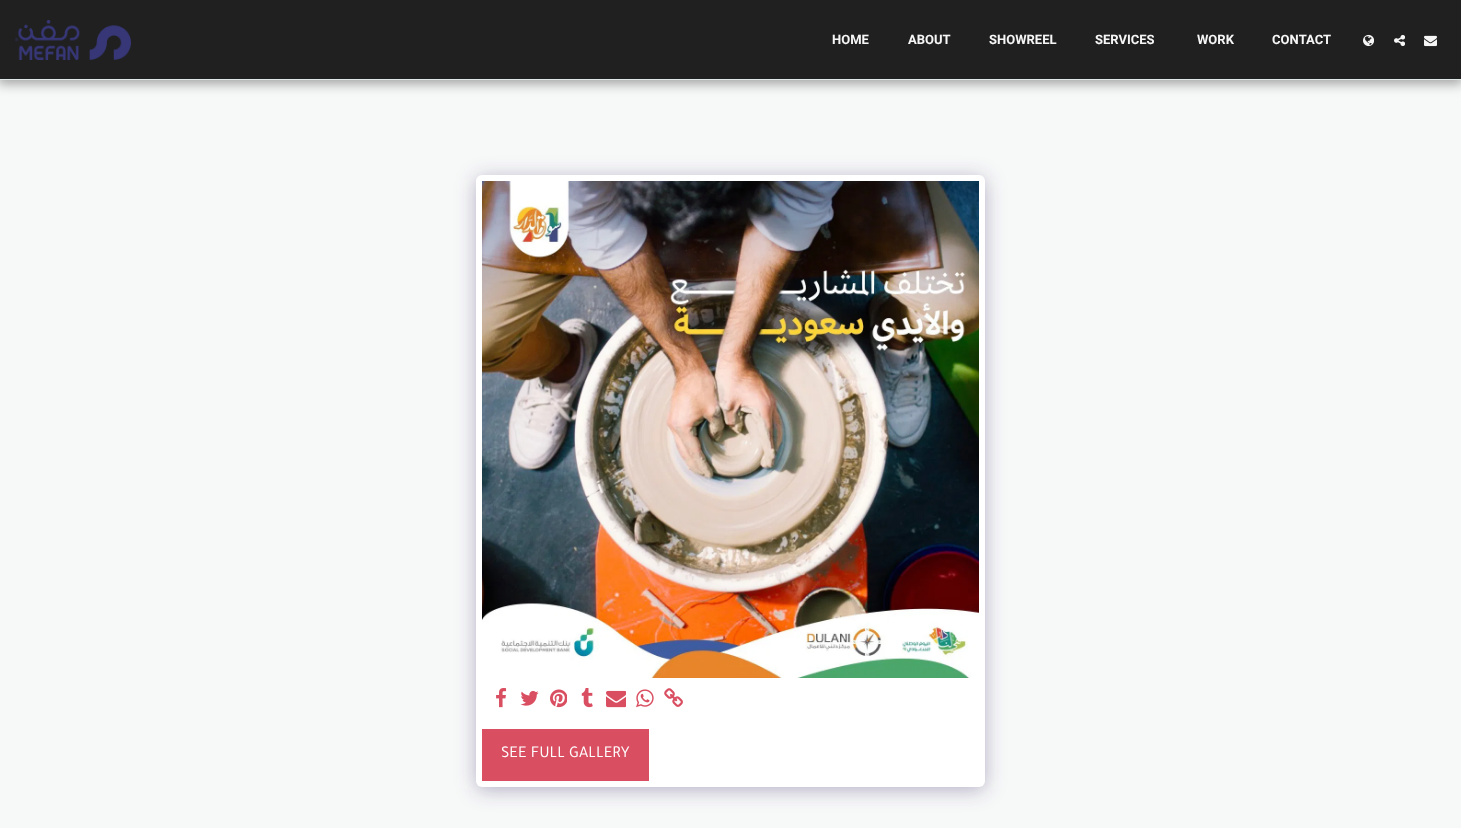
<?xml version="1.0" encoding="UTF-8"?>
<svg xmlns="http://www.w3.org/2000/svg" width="1461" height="828">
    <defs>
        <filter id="blur1" x="-50%" y="-200%" width="200%" height="500%"><feGaussianBlur stdDeviation="6"/></filter>
        <filter id="blur2" x="-50%" y="-200%" width="200%" height="500%"><feGaussianBlur stdDeviation="10"/></filter>
    </defs>
    <rect width="100%" height="100%" fill="#F7F9F8"/>
    <rect x="-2" y="0" width="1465" height="84" fill="#000000" fill-opacity="0.35" filter="url(#blur1)"/>
    <rect x="0" y="0" width="1461" height="79" fill="#202020"/>
    <rect x="0" y="79" width="1461" height="1" fill="#DFE8E6"/>
    <image x="15" y="20" width="116" height="40" href="img_01.png"/>
    <text x="832" y="44" font-family="Heebo" font-size="13" font-weight="700" fill="#F6F6F6">HOME</text>
    <text x="908" y="44" font-family="Heebo" font-size="13" font-weight="700" fill="#F6F6F6">ABOUT</text>
    <text x="989" y="44" font-family="Heebo" font-size="13" font-weight="700" fill="#F6F6F6">SHOWREEL</text>
    <text x="1095" y="44" font-family="Heebo" font-size="13" font-weight="700" fill="#F6F6F6">SERVICES</text>
    <text x="1197" y="44" font-family="Heebo" font-size="13" font-weight="700" fill="#F6F6F6">WORK</text>
    <text x="1272" y="44" font-family="Heebo" font-size="13" font-weight="700" fill="#F6F6F6">CONTACT</text>
    <image x="1363" y="34" width="11" height="13" href="img_02.png"/>
    <image x="1394" y="34" width="11" height="13" href="img_03.png"/>
    <image x="1424" y="35" width="13" height="12" href="img_04.png"/>
    <rect x="476" y="178" width="509" height="612" rx="6" fill="#4D3F7A" fill-opacity="0.4" filter="url(#blur2)"/>
    <rect x="476" y="175" width="509" height="612" rx="6" fill="#FFFFFF"/>
    <image x="482" y="181" width="497" height="497" href="img_05.png"/>
    <image x="496" y="688" width="11" height="20" href="img_06.png"/>
    <image x="520" y="691" width="19" height="15" href="img_07.png"/>
    <image x="550" y="689" width="17" height="19" href="img_08.png"/>
    <image x="581" y="688" width="12" height="20" href="img_09.png"/>
    <image x="606" y="690" width="20" height="18" href="img_10.png"/>
    <image x="636" y="689" width="18" height="19" href="img_11.png"/>
    <image x="664" y="688" width="19" height="19" href="img_12.png"/>
    <rect x="482" y="729" width="167" height="52" fill="#D94E61"/>
    <text x="501" y="757" font-family="Tajawal" font-size="16.5" fill="#FFFFFF">SEE FULL GALLERY</text>
</svg>
